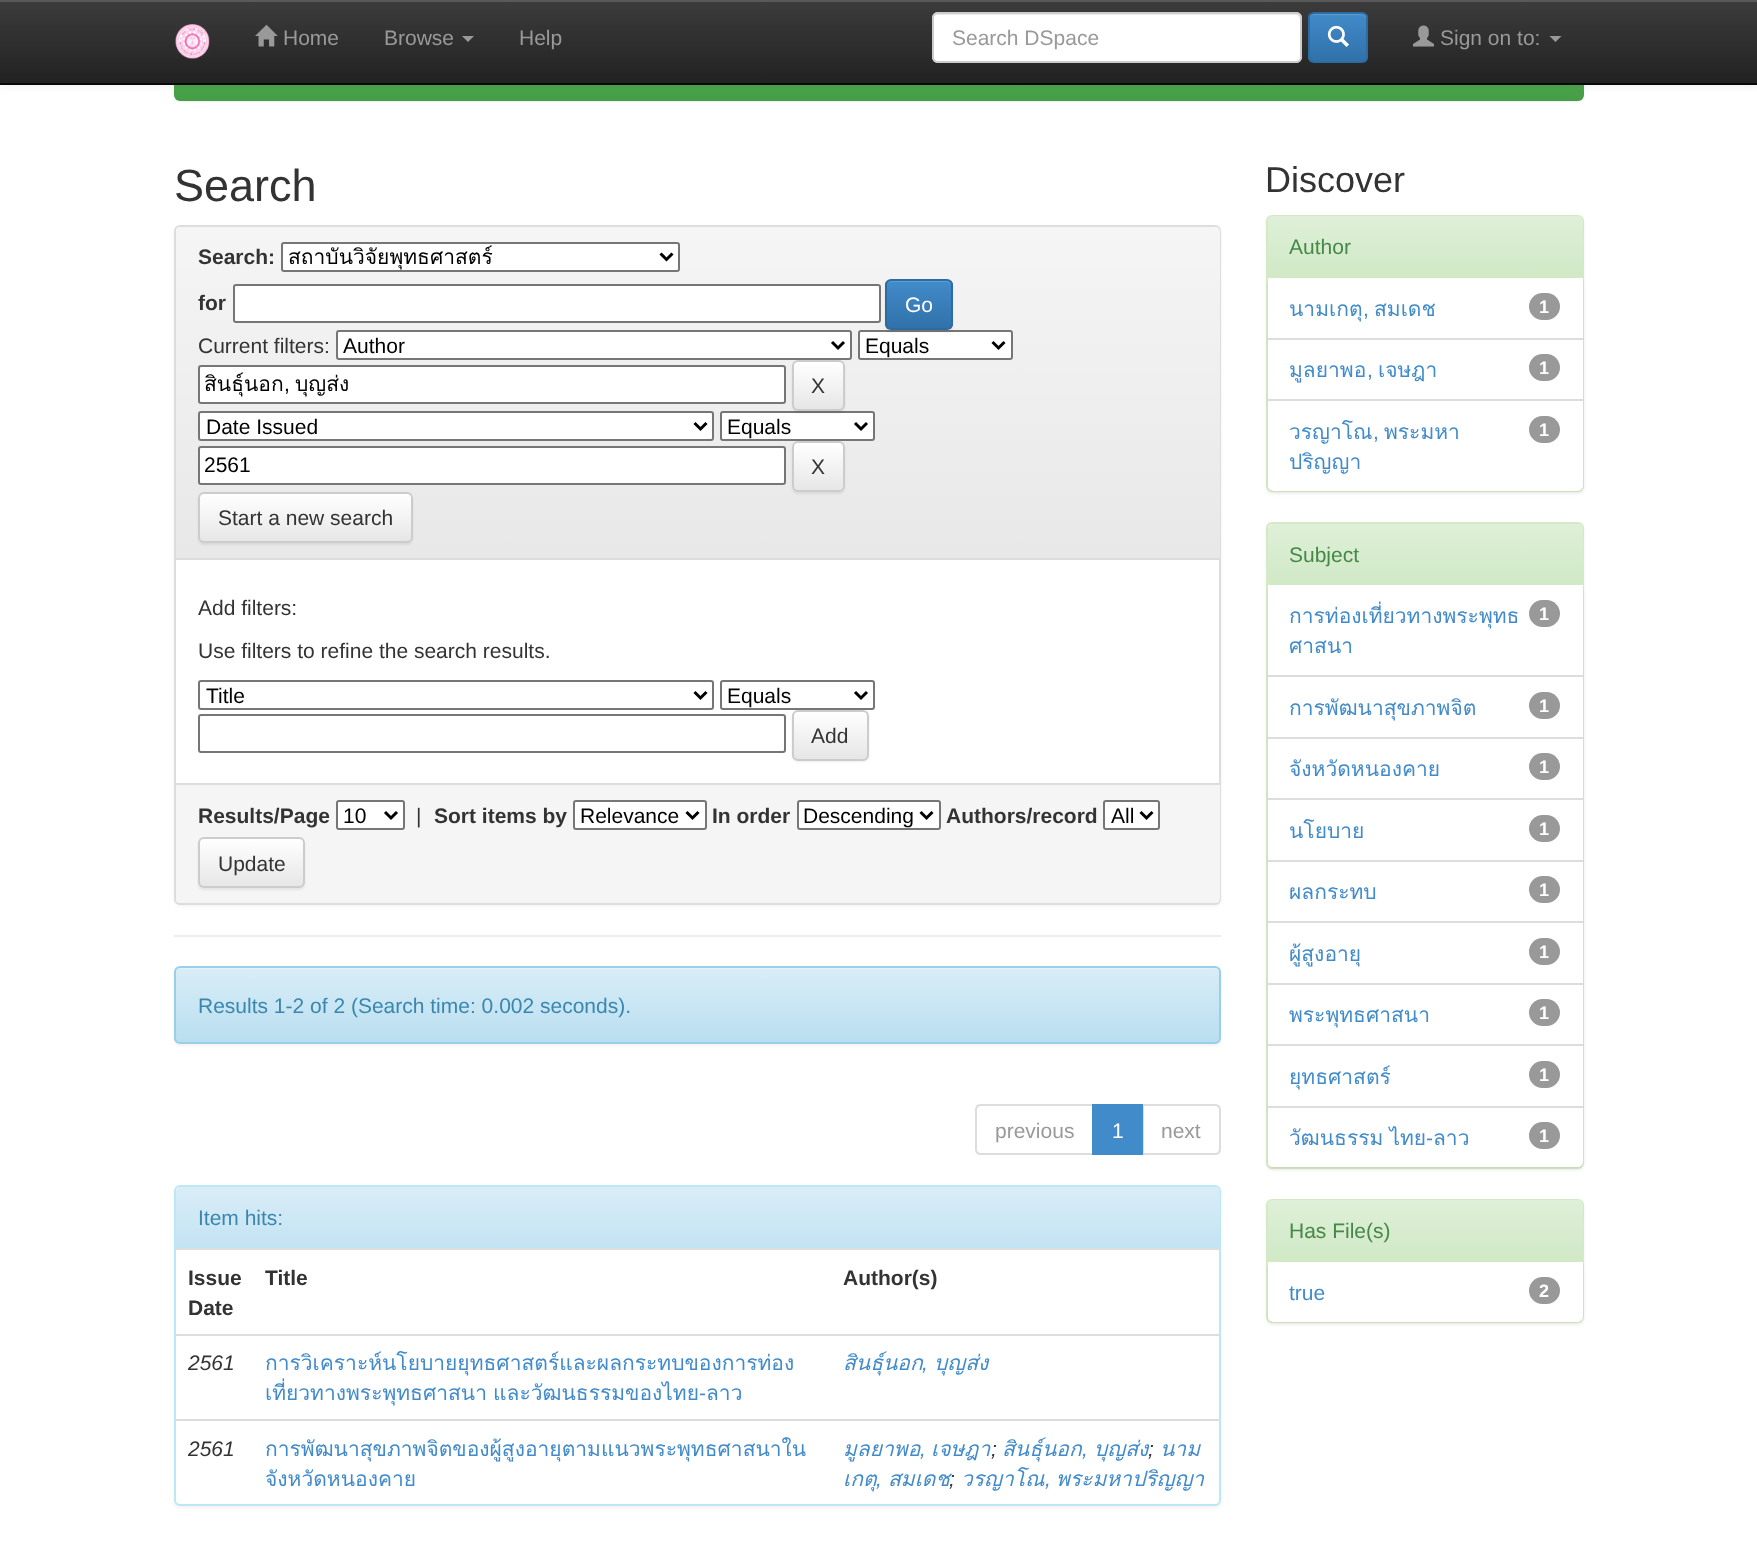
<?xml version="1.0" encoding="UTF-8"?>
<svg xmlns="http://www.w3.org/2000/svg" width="1757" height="1549">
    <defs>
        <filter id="blur1" x="-50%" y="-200%" width="200%" height="500%"><feGaussianBlur stdDeviation="1"/></filter>
        <linearGradient id="g1" gradientUnits="userSpaceOnUse" x1="879" y1="46" x2="879" y2="101"><stop offset="0" stop-color="#5CB85C"/><stop offset="1" stop-color="#449D44"/></linearGradient>
        <filter id="blur2" x="-50%" y="-200%" width="200%" height="500%"><feGaussianBlur stdDeviation="4"/></filter>
        <linearGradient id="g2" gradientUnits="userSpaceOnUse" x1="879" y1="0" x2="879" y2="83"><stop offset="0" stop-color="#3C3C3C"/><stop offset="1" stop-color="#222222"/></linearGradient>
        <clipPath id="clip1"><rect x="1308" y="12" width="60" height="51" rx="6"/></clipPath>
        <linearGradient id="g3" gradientUnits="userSpaceOnUse" x1="1338" y1="13" x2="1338" y2="62"><stop offset="0" stop-color="#428BCA"/><stop offset="1" stop-color="#3071A9"/></linearGradient>
        <filter id="blur3" x="-50%" y="-200%" width="200%" height="500%"><feGaussianBlur stdDeviation="1.5"/></filter>
        <linearGradient id="g4" gradientUnits="userSpaceOnUse" x1="698" y1="226" x2="698" y2="558"><stop offset="0" stop-color="#F5F5F5"/><stop offset="1" stop-color="#E8E8E8"/></linearGradient>
        <clipPath id="clip2"><rect x="885" y="279" width="68" height="51" rx="6"/></clipPath>
        <linearGradient id="g5" gradientUnits="userSpaceOnUse" x1="919" y1="281" x2="919" y2="329"><stop offset="0" stop-color="#428BCA"/><stop offset="1" stop-color="#3071A9"/></linearGradient>
        <clipPath id="clip3"><rect x="204" y="369" width="576" height="30"/></clipPath>
        <clipPath id="clip4"><rect x="792" y="360" width="53" height="51" rx="6"/></clipPath>
        <linearGradient id="g6" gradientUnits="userSpaceOnUse" x1="818" y1="362" x2="818" y2="410"><stop offset="0" stop-color="#FFFFFF"/><stop offset="1" stop-color="#E6E6E6"/></linearGradient>
        <clipPath id="clip5"><rect x="792" y="441" width="53" height="51" rx="6"/></clipPath>
        <linearGradient id="g7" gradientUnits="userSpaceOnUse" x1="818" y1="443" x2="818" y2="491"><stop offset="0" stop-color="#FFFFFF"/><stop offset="1" stop-color="#E6E6E6"/></linearGradient>
        <clipPath id="clip6"><rect x="198" y="492" width="215" height="51" rx="6"/></clipPath>
        <linearGradient id="g8" gradientUnits="userSpaceOnUse" x1="305" y1="494" x2="305" y2="542"><stop offset="0" stop-color="#FFFFFF"/><stop offset="1" stop-color="#E6E6E6"/></linearGradient>
        <clipPath id="clip7"><rect x="792" y="710" width="77" height="51" rx="6"/></clipPath>
        <linearGradient id="g9" gradientUnits="userSpaceOnUse" x1="830" y1="711" x2="830" y2="759"><stop offset="0" stop-color="#FFFFFF"/><stop offset="1" stop-color="#E6E6E6"/></linearGradient>
        <clipPath id="clip8"><rect x="198" y="837" width="107" height="51" rx="6"/></clipPath>
        <linearGradient id="g10" gradientUnits="userSpaceOnUse" x1="251" y1="839" x2="251" y2="887"><stop offset="0" stop-color="#FFFFFF"/><stop offset="1" stop-color="#E6E6E6"/></linearGradient>
        <clipPath id="clip9"><rect x="174" y="966" width="1047" height="78" rx="6"/></clipPath>
        <linearGradient id="g11" gradientUnits="userSpaceOnUse" x1="698" y1="968" x2="698" y2="1043"><stop offset="0" stop-color="#D9EDF7"/><stop offset="1" stop-color="#B9DEF0"/></linearGradient>
        <linearGradient id="g12" gradientUnits="userSpaceOnUse" x1="698" y1="1187" x2="698" y2="1247"><stop offset="0" stop-color="#D9EDF7"/><stop offset="1" stop-color="#C4E3F3"/></linearGradient>
        <linearGradient id="g13" gradientUnits="userSpaceOnUse" x1="1425" y1="216" x2="1425" y2="276"><stop offset="0" stop-color="#DFF0D8"/><stop offset="1" stop-color="#D0E9C6"/></linearGradient>
        <linearGradient id="g14" gradientUnits="userSpaceOnUse" x1="1425" y1="524" x2="1425" y2="584"><stop offset="0" stop-color="#DFF0D8"/><stop offset="1" stop-color="#D0E9C6"/></linearGradient>
        <linearGradient id="g15" gradientUnits="userSpaceOnUse" x1="1425" y1="1200" x2="1425" y2="1260"><stop offset="0" stop-color="#DFF0D8"/><stop offset="1" stop-color="#D0E9C6"/></linearGradient>
    </defs>
    <rect width="100%" height="100%" fill="#FFFFFF"/>
    <rect x="174" y="48" width="1410" height="54" rx="6" fill="#000000" fill-opacity="0.07" filter="url(#blur1)"/>
    <rect x="174" y="47" width="1410" height="54" rx="6" fill="url(#g1)"/>
    <rect x="0" y="2" width="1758" height="84" fill="#000000" fill-opacity="0.07" filter="url(#blur2)"/>
    <rect x="0" y="2" width="1757" height="81" fill="url(#g2)"/>
    <rect x="0" y="0" width="1757" height="2" fill="#595959"/>
    <rect x="0" y="83" width="1757" height="2" fill="#080808"/>
    <image x="175" y="24" width="35" height="35" href="img_01.png"/>
    <image x="255" y="24" width="23" height="23" href="img_02.png"/>
    <text x="283" y="45" font-family="Liberation Sans" font-size="21" fill="#999999">Home</text>
    <text x="384" y="45" font-family="Liberation Sans" font-size="21" fill="#999999">Browse</text>
    <path d="M 462 36 H 474 L 468 42 Z" fill="#999999"/>
    <text x="519" y="45" font-family="Liberation Sans" font-size="21" fill="#999999">Help</text>
    <rect x="932" y="12" width="370" height="51" rx="6" fill="#FFFFFF"/>
    <path d="M 938 15 H 1296 C 1298 15 1300 17 1300 20 V 58 L 1299 61 C 1300 60 1301 58 1301 57 V 19 C 1301 16 1299 14 1296 14 H 938 C 935 14 933 16 933 19 V 20 C 933 17 935 15 938 15 Z" fill="#ECECEC"/>
    <rect x="933" y="13" width="368" height="49" rx="5" fill="none" stroke="#CCCCCC" stroke-width="2"/>
    <text x="952" y="45" font-family="Liberation Sans" font-size="21" fill="#999999">Search DSpace</text>
    <g clip-path="url(#clip1)">
        <rect x="1308" y="14" width="60" height="48" fill="url(#g3)"/>
    </g>
    <path d="M 1314 15 H 1362 C 1364 15 1366 17 1366 20 V 58 L 1365 61 C 1368 58 1367 54 1367 51 V 38 C 1367 12 1372 14 1346 14 H 1323 C 1317 14 1310 12 1310 20 C 1310 17 1312 15 1314 15 Z" fill="#FFFFFF" fill-opacity="0.15"/>
    <rect x="1309" y="13" width="58" height="49" rx="5" fill="none" stroke="#2D6CA2" stroke-width="2"/>
    <image x="1327" y="25" width="22" height="22" href="img_03.png"/>
    <image x="1413" y="25" width="21" height="22" href="img_04.png"/>
    <text x="1440" y="45" font-family="Liberation Sans" font-size="21" fill="#999999">Sign on to:</text>
    <path d="M 1549.5 36 H 1561.5 L 1555.5 42 Z" fill="#999999"/>
    <text x="174" y="201" font-family="Liberation Sans" font-size="45" fill="#333333">Search</text>
    <rect x="174" y="227" width="1047" height="679" rx="6" fill="#000000" fill-opacity="0.05" filter="url(#blur3)"/>
    <rect x="175" y="226" width="1045" height="678" rx="5" fill="#FFFFFF" stroke="#DDDDDD" stroke-width="2"/>
    <path d="M 181 227 H 1215 C 1218 227 1220 229 1220 232 V 558 H 176 V 232 C 176 229 178 227 181 227 Z" fill="url(#g4)"/>
    <rect x="176" y="558" width="1044" height="2" fill="#DDDDDD"/>
    <text x="198" y="264" font-family="Liberation Sans" font-size="21" font-weight="700" fill="#333333">Search:</text>
    <rect x="282" y="243" width="397" height="28" rx="2" fill="#FFFFFF" stroke="#767676" stroke-width="2"/>
    <path d="M 660.5 253.5 L 666.5 259.5 L 672.5 253.5" fill="none" stroke="#000000" stroke-width="3"/>
    <text x="288" y="264" font-family="Loma" font-size="21" fill="#000000">สถาบันวิจัยพุทธศาสตร์</text>
    <text x="198" y="310" font-family="Liberation Sans" font-size="21" font-weight="700" fill="#333333">for</text>
    <rect x="234" y="285" width="646" height="37" rx="2" fill="#FFFFFF" stroke="#767676" stroke-width="2"/>
    <rect x="859" y="331" width="153" height="28" rx="2" fill="#FFFFFF" stroke="#767676" stroke-width="2"/>
    <rect x="885" y="281" width="68" height="51" rx="6" fill="#000000" fill-opacity="0.07" filter="url(#blur1)"/>
    <g clip-path="url(#clip2)">
        <rect x="885" y="281" width="68" height="48" fill="url(#g5)"/>
    </g>
    <path d="M 891 282 H 946 C 949 282 951 284 951 286 C 951 283 949 281 946 281 H 892 C 890 281 889 282 888 283 Z" fill="#5E9CD2"/>
    <rect x="886" y="280" width="66" height="49" rx="5" fill="none" stroke="#2D6CA2" stroke-width="2"/>
    <text x="905" y="312" font-family="Liberation Sans" font-size="21" fill="#FFFFFF">Go</text>
    <text x="198" y="353" font-family="Liberation Sans" font-size="21" fill="#333333">Current filters:</text>
    <rect x="337" y="331" width="514" height="28" rx="2" fill="#FFFFFF" stroke="#767676" stroke-width="2"/>
    <path d="M 832 342 L 838 348 L 844 342" fill="none" stroke="#000000" stroke-width="3"/>
    <text x="343" y="353" font-family="Liberation Sans" font-size="21" fill="#000000">Author</text>
    <path d="M 992.5 342 L 998.5 348 L 1004.5 342" fill="none" stroke="#000000" stroke-width="3"/>
    <text x="865" y="353" font-family="Liberation Sans" font-size="21" fill="#000000">Equals</text>
    <rect x="199" y="366" width="586" height="37" rx="2" fill="#FFFFFF" stroke="#767676" stroke-width="2"/>
    <g clip-path="url(#clip3)">
        <text x="204" y="391" font-family="Loma" font-size="21" fill="#000000">สินธุ์นอก</text>
    </g>
    <text x="284" y="391" font-family="Liberation Sans" font-size="21" fill="#000000">,</text>
    <text x="295" y="391" font-family="Loma" font-size="21" fill="#000000">บุญส่ง</text>
    <rect x="721" y="412" width="153" height="28" rx="2" fill="#FFFFFF" stroke="#767676" stroke-width="2"/>
    <rect x="792" y="362" width="53" height="51" rx="6" fill="#000000" fill-opacity="0.07" filter="url(#blur1)"/>
    <g clip-path="url(#clip4)">
        <rect x="792" y="362" width="53" height="48" fill="url(#g6)"/>
    </g>
    <rect x="793" y="361" width="51" height="49" rx="5" fill="none" stroke="#CCCCCC" stroke-width="2"/>
    <text x="811" y="393" font-family="Liberation Sans" font-size="21" fill="#333333">X</text>
    <rect x="199" y="412" width="514" height="28" rx="2" fill="#FFFFFF" stroke="#767676" stroke-width="2"/>
    <path d="M 694.5 423 L 700.5 429 L 706.5 423" fill="none" stroke="#000000" stroke-width="3"/>
    <text x="206" y="434" font-family="Liberation Sans" font-size="21" fill="#000000">Date Issued</text>
    <path d="M 855 423 L 861 429 L 867 423" fill="none" stroke="#000000" stroke-width="3"/>
    <text x="727" y="434" font-family="Liberation Sans" font-size="21" fill="#000000">Equals</text>
    <rect x="199" y="447" width="586" height="37" rx="2" fill="#FFFFFF" stroke="#767676" stroke-width="2"/>
    <text x="204" y="472" font-family="Liberation Sans" font-size="21" fill="#000000">2561</text>
    <rect x="792" y="443" width="53" height="51" rx="6" fill="#000000" fill-opacity="0.07" filter="url(#blur1)"/>
    <g clip-path="url(#clip5)">
        <rect x="792" y="443" width="53" height="48" fill="url(#g7)"/>
    </g>
    <rect x="793" y="442" width="51" height="49" rx="5" fill="none" stroke="#CCCCCC" stroke-width="2"/>
    <text x="811" y="474" font-family="Liberation Sans" font-size="21" fill="#333333">X</text>
    <rect x="198" y="494" width="215" height="51" rx="6" fill="#000000" fill-opacity="0.07" filter="url(#blur1)"/>
    <g clip-path="url(#clip6)">
        <rect x="198" y="494" width="215" height="48" fill="url(#g8)"/>
    </g>
    <rect x="199" y="493" width="213" height="49" rx="5" fill="none" stroke="#CCCCCC" stroke-width="2"/>
    <text x="218" y="525" font-family="Liberation Sans" font-size="21" fill="#333333">Start a new search</text>
    <text x="198" y="615" font-family="Liberation Sans" font-size="21" fill="#333333">Add filters:</text>
    <text x="198" y="658" font-family="Liberation Sans" font-size="21" fill="#333333">Use filters to refine the search results.</text>
    <rect x="199" y="681" width="514" height="28" rx="2" fill="none" stroke="#767676" stroke-width="2"/>
    <path d="M 694.5 692 L 700.5 698 L 706.5 692" fill="none" stroke="#000000" stroke-width="3"/>
    <text x="206" y="703" font-family="Liberation Sans" font-size="21" fill="#000000">Title</text>
    <rect x="721" y="681" width="153" height="28" rx="2" fill="none" stroke="#767676" stroke-width="2"/>
    <path d="M 855 692 L 861 698 L 867 692" fill="none" stroke="#000000" stroke-width="3"/>
    <text x="727" y="703" font-family="Liberation Sans" font-size="21" fill="#000000">Equals</text>
    <rect x="199" y="715" width="586" height="37" rx="2" fill="none" stroke="#767676" stroke-width="2"/>
    <rect x="792" y="711" width="77" height="51" rx="6" fill="#000000" fill-opacity="0.07" filter="url(#blur1)"/>
    <g clip-path="url(#clip7)">
        <rect x="792" y="711" width="77" height="48" fill="url(#g9)"/>
    </g>
    <rect x="793" y="711" width="75" height="49" rx="5" fill="none" stroke="#CCCCCC" stroke-width="2"/>
    <text x="811" y="743" font-family="Liberation Sans" font-size="21" fill="#333333">Add</text>
    <path d="M 176 783 H 1220 V 898 C 1220 901 1218 903 1215 903 H 181 C 178 903 176 901 176 898 Z" fill="#F5F5F5"/>
    <rect x="176" y="783" width="1044" height="2" fill="#DDDDDD"/>
    <text x="198" y="823" font-family="Liberation Sans" font-size="21" font-weight="700" fill="#333333">Results/Page</text>
    <rect x="337" y="801" width="67" height="28" rx="2" fill="#FFFFFF" stroke="#767676" stroke-width="2"/>
    <path d="M 385 812 L 391 818 L 397 812" fill="none" stroke="#000000" stroke-width="3"/>
    <text x="343" y="823" font-family="Liberation Sans" font-size="21" fill="#000000">10</text>
    <text x="416" y="823" font-family="Liberation Sans" font-size="21" fill="#333333">|</text>
    <text x="434" y="823" font-family="Liberation Sans" font-size="21" font-weight="700" fill="#333333">Sort items by</text>
    <rect x="574" y="801" width="132" height="28" rx="2" fill="#FFFFFF" stroke="#767676" stroke-width="2"/>
    <path d="M 686.5 812 L 692.5 818 L 698.5 812" fill="none" stroke="#000000" stroke-width="3"/>
    <text x="580" y="823" font-family="Liberation Sans" font-size="21" fill="#000000">Relevance</text>
    <text x="712" y="823" font-family="Liberation Sans" font-size="21" font-weight="700" fill="#333333">In order</text>
    <rect x="798" y="801" width="142" height="28" rx="2" fill="#FFFFFF" stroke="#767676" stroke-width="2"/>
    <path d="M 920.5 812 L 926.5 818 L 932.5 812" fill="none" stroke="#000000" stroke-width="3"/>
    <text x="803" y="823" font-family="Liberation Sans" font-size="21" fill="#000000">Descending</text>
    <text x="946" y="823" font-family="Liberation Sans" font-size="21" font-weight="700" fill="#333333">Authors/record</text>
    <rect x="1104" y="801" width="55" height="28" rx="2" fill="#FFFFFF" stroke="#767676" stroke-width="2"/>
    <path d="M 1140.5 812 L 1146.5 818 L 1152.5 812" fill="none" stroke="#000000" stroke-width="3"/>
    <text x="1111" y="823" font-family="Liberation Sans" font-size="21" fill="#000000">All</text>
    <rect x="198" y="839" width="107" height="51" rx="6" fill="#000000" fill-opacity="0.07" filter="url(#blur1)"/>
    <g clip-path="url(#clip8)">
        <rect x="198" y="839" width="107" height="48" fill="url(#g10)"/>
    </g>
    <rect x="199" y="838" width="105" height="49" rx="5" fill="none" stroke="#CCCCCC" stroke-width="2"/>
    <text x="218" y="871" font-family="Liberation Sans" font-size="21" fill="#333333">Update</text>
    <rect x="174" y="935" width="1047" height="2" fill="#EEEEEE"/>
    <rect x="174" y="968" width="1047" height="78" rx="6" fill="#000000" fill-opacity="0.05" filter="url(#blur3)"/>
    <g clip-path="url(#clip9)">
        <rect x="174" y="968" width="1047" height="75" fill="url(#g11)"/>
    </g>
    <path d="M 180 969 H 1215 C 1217 969 1220 971 1220 974 C 1220 971 1218 968 1215 968 H 181 C 178 968 176 971 176 974 C 176 971 178 969 180 969 Z" fill="#E2F2F9"/>
    <rect x="175" y="967" width="1045" height="76" rx="5" fill="none" stroke="#9ACFEA" stroke-width="2"/>
    <text x="198" y="1013" font-family="Liberation Sans" font-size="21" fill="#3A87AD">Results 1-2 of 2 (Search time: 0.002 seconds).</text>
    <path d="M 981 1105 H 1093 V 1154 H 981 C 978 1154 976 1152 976 1149 V 1110 C 976 1107 978 1105 981 1105 Z" fill="none" stroke="#DDDDDD" stroke-width="2"/>
    <text x="995" y="1138" font-family="Liberation Sans" font-size="21" fill="#999999">previous</text>
    <path d="M 1143 1105 H 1215 C 1218 1105 1220 1107 1220 1110 V 1149 C 1220 1152 1218 1154 1215 1154 H 1143 Z" fill="none" stroke="#DDDDDD" stroke-width="2"/>
    <rect x="1092" y="1104" width="51" height="51" fill="#428BCA"/>
    <text x="1112" y="1138" font-family="Liberation Sans" font-size="21" fill="#FFFFFF">1</text>
    <text x="1161" y="1138" font-family="Liberation Sans" font-size="21" fill="#999999">next</text>
    <rect x="174" y="1187" width="1047" height="321" rx="6" fill="#000000" fill-opacity="0.05" filter="url(#blur3)"/>
    <rect x="175" y="1186" width="1045" height="319" rx="5" fill="#FFFFFF" stroke="#BCE8F1" stroke-width="2"/>
    <path d="M 181 1187 H 1215 C 1218 1187 1220 1189 1220 1192 V 1247 H 176 V 1192 C 176 1189 178 1187 181 1187 Z" fill="url(#g12)"/>
    <rect x="176" y="1247" width="1044" height="1" fill="#BCE8F1"/>
    <text x="198" y="1225" font-family="Liberation Sans" font-size="21" fill="#3A87AD">Item hits:</text>
    <text font-family="Liberation Sans" font-size="21" font-weight="700" fill="#333333">
        <tspan x="188" y="1285">Issue</tspan>
        <tspan x="188" y="1315">Date</tspan>
    </text>
    <text x="265" y="1285" font-family="Liberation Sans" font-size="21" font-weight="700" fill="#333333">Title</text>
    <rect x="176" y="1248" width="1044" height="2" fill="#DDDDDD"/>
    <text x="843" y="1285" font-family="Liberation Sans" font-size="21" font-weight="700" fill="#333333">Author(s)</text>
    <text x="188" y="1370" font-family="Liberation Sans" font-size="21" font-style="italic" fill="#333333">2561</text>
    <text font-family="Loma" font-size="21" fill="#428BCA">
        <tspan x="265" y="1370">การวิเคราะห์นโยบายยุทธศาสตร์และผลกระทบของการท่อง</tspan>
        <tspan x="265" y="1400" word-spacing="-1">เที่ยวทางพระพุทธศาสนา และวัฒนธรรมของไทย</tspan>
    </text>
    <text x="699" y="1400" font-family="Liberation Sans" font-size="21" fill="#428BCA">-</text>
    <text x="706" y="1400" font-family="Loma" font-size="21" fill="#428BCA">ลาว</text>
    <rect x="176" y="1334" width="1044" height="2" fill="#DDDDDD"/>
    <text x="843" y="1370" font-family="Loma" font-size="21" font-style="italic" fill="#428BCA">สินธุ์นอก</text>
    <text x="922" y="1370" font-family="Liberation Sans" font-size="21" font-style="italic" fill="#428BCA">,</text>
    <text x="934" y="1370" font-family="Loma" font-size="21" font-style="italic" fill="#428BCA">บุญส่ง</text>
    <text x="188" y="1456" font-family="Liberation Sans" font-size="21" font-style="italic" fill="#333333">2561</text>
    <text font-family="Loma" font-size="21" fill="#428BCA">
        <tspan x="265" y="1456">การพัฒนาสุขภาพจิตของผู้สูงอายุตามแนวพระพุทธศาสนาใน</tspan>
        <tspan x="265" y="1486">จังหวัดหนองคาย</tspan>
    </text>
    <rect x="176" y="1419" width="1044" height="2" fill="#DDDDDD"/>
    <text x="843" y="1456" font-family="Loma" font-size="21" font-style="italic" fill="#428BCA">มูลยาพอ</text>
    <text x="920" y="1456" font-family="Liberation Sans" font-size="21" font-style="italic" fill="#428BCA">,</text>
    <text x="931" y="1456" font-family="Loma" font-size="21" font-style="italic" fill="#428BCA">เจษฎา</text>
    <text x="991" y="1456" font-family="Liberation Sans" font-size="21" font-style="italic" fill="#333333">;</text>
    <text x="1002" y="1456" font-family="Loma" font-size="21" font-style="italic" fill="#428BCA">สินธุ์นอก</text>
    <text x="1082" y="1456" font-family="Liberation Sans" font-size="21" font-style="italic" fill="#428BCA">,</text>
    <text x="1094" y="1456" font-family="Loma" font-size="21" font-style="italic" fill="#428BCA">บุญส่ง</text>
    <text x="1148" y="1456" font-family="Liberation Sans" font-size="21" font-style="italic" fill="#333333">;</text>
    <text x="1160" y="1456" font-family="Loma" font-size="21" font-style="italic" fill="#428BCA">นาม</text>
    <text x="843" y="1486" font-family="Loma" font-size="21" font-style="italic" fill="#428BCA">เกตุ</text>
    <text x="888" y="1486" font-family="Loma" font-size="21" font-style="italic" fill="#428BCA">สมเดช</text>
    <text x="961" y="1486" font-family="Loma" font-size="21" font-style="italic" fill="#428BCA">วรญาโณ</text>
    <text x="1056" y="1486" font-family="Loma" font-size="21" font-style="italic" fill="#428BCA">พระมหาปริญญา</text>
    <text x="876" y="1486" font-family="Liberation Sans" font-size="21" font-style="italic" fill="#428BCA">,</text>
    <text x="949" y="1486" font-family="Liberation Sans" font-size="21" font-style="italic" fill="#333333">;</text>
    <text x="1045" y="1486" font-family="Liberation Sans" font-size="21" font-style="italic" fill="#428BCA">,</text>
    <text x="1265" y="192" font-family="Liberation Sans" font-size="36" fill="#333333">Discover</text>
    <rect x="1266" y="216" width="318" height="278" rx="6" fill="#000000" fill-opacity="0.05" filter="url(#blur3)"/>
    <rect x="1267" y="216" width="316" height="275" rx="5" fill="#FFFFFF" stroke="#D6E9C6" stroke-width="2"/>
    <path d="M 1273 216 H 1578 C 1581 216 1583 218 1583 221 V 276 H 1268 V 221 C 1268 218 1270 216 1273 216 Z" fill="url(#g13)"/>
    <rect x="1268" y="276" width="315" height="2" fill="#D6E9C6"/>
    <text x="1289" y="254" font-family="Liberation Sans" font-size="21" fill="#468847">Author</text>
    <rect x="1268" y="279" width="315" height="213" rx="6" fill="#000000" fill-opacity="0.07" filter="url(#blur3)"/>
    <rect x="1268" y="278" width="315" height="60" fill="#FFFFFF"/>
    <text x="1289" y="316" font-family="Loma" font-size="21" fill="#428BCA">นามเกตุ</text>
    <text x="1363" y="316" font-family="Liberation Sans" font-size="21" fill="#428BCA">,</text>
    <text x="1374" y="316" font-family="Loma" font-size="21" fill="#428BCA">สมเดช</text>
    <rect x="1529" y="293" width="31" height="27" rx="13.5" fill="#999999"/>
    <text x="1539" y="313" font-family="Liberation Sans" font-size="18" font-weight="700" fill="#FFFFFF">1</text>
    <rect x="1268" y="340" width="315" height="59" fill="#FFFFFF"/>
    <rect x="1268" y="338" width="315" height="2" fill="#DDDDDD"/>
    <text x="1289" y="377" font-family="Loma" font-size="21" fill="#428BCA">มูลยาพอ</text>
    <text x="1367" y="377" font-family="Liberation Sans" font-size="21" fill="#428BCA">,</text>
    <text x="1378" y="377" font-family="Loma" font-size="21" fill="#428BCA">เจษฎา</text>
    <rect x="1529" y="354" width="31" height="27" rx="13.5" fill="#999999"/>
    <text x="1539" y="374" font-family="Liberation Sans" font-size="18" font-weight="700" fill="#FFFFFF">1</text>
    <path d="M 1268 399 H 1583 V 485 C 1583 488.5 1580.5 491 1577 491 H 1274 C 1270.5 491 1268 488.5 1268 485 Z" fill="#FFFFFF"/>
    <rect x="1268" y="399" width="315" height="2" fill="#DDDDDD"/>
    <text x="1289" y="439" font-family="Loma" font-size="21" fill="#428BCA">วรญาโณ</text>
    <text x="1373" y="439" font-family="Liberation Sans" font-size="21" fill="#428BCA">,</text>
    <text x="1384" y="439" font-family="Loma" font-size="21" fill="#428BCA">พระมหา</text>
    <rect x="1529" y="416" width="31" height="27" rx="13.5" fill="#999999"/>
    <text x="1539" y="436" font-family="Liberation Sans" font-size="18" font-weight="700" fill="#FFFFFF">1</text>
    <text x="1289" y="469" font-family="Loma" font-size="21" fill="#428BCA">ปริญญา</text>
    <rect x="1266" y="524" width="318" height="646" rx="6" fill="#000000" fill-opacity="0.05" filter="url(#blur3)"/>
    <rect x="1267" y="523" width="316" height="645" rx="5" fill="#FFFFFF" stroke="#D6E9C6" stroke-width="2"/>
    <path d="M 1273 524 H 1578 C 1581 524 1583 526 1583 529 V 584 H 1268 V 529 C 1268 526 1270 524 1273 524 Z" fill="url(#g14)"/>
    <rect x="1268" y="584" width="315" height="1" fill="#D6E9C6"/>
    <text x="1289" y="562" font-family="Liberation Sans" font-size="21" fill="#468847">Subject</text>
    <rect x="1268" y="587" width="315" height="582" rx="6" fill="#000000" fill-opacity="0.07" filter="url(#blur3)"/>
    <rect x="1268" y="585" width="315" height="90" fill="#FFFFFF"/>
    <rect x="1268" y="675" width="315" height="2" fill="#DDDDDD"/>
    <text x="1289" y="623" font-family="Loma" font-size="21" fill="#428BCA">การท่องเที่ยวทางพระพุทธ</text>
    <rect x="1529" y="600" width="31" height="27" rx="13.5" fill="#999999"/>
    <text x="1539" y="620" font-family="Liberation Sans" font-size="18" font-weight="700" fill="#FFFFFF">1</text>
    <text x="1289" y="653" font-family="Loma" font-size="21" fill="#428BCA">ศาสนา</text>
    <rect x="1268" y="677" width="315" height="60" fill="#FFFFFF"/>
    <text x="1289" y="715" font-family="Loma" font-size="21" fill="#428BCA">การพัฒนาสุขภาพจิต</text>
    <rect x="1529" y="692" width="31" height="27" rx="13.5" fill="#999999"/>
    <text x="1539" y="712" font-family="Liberation Sans" font-size="18" font-weight="700" fill="#FFFFFF">1</text>
    <rect x="1268" y="739" width="315" height="59" fill="#FFFFFF"/>
    <rect x="1268" y="737" width="315" height="2" fill="#DDDDDD"/>
    <rect x="1268" y="798" width="315" height="2" fill="#DDDDDD"/>
    <text x="1289" y="776" font-family="Loma" font-size="21" fill="#428BCA">จังหวัดหนองคาย</text>
    <rect x="1529" y="753" width="31" height="27" rx="13.5" fill="#999999"/>
    <text x="1539" y="773" font-family="Liberation Sans" font-size="18" font-weight="700" fill="#FFFFFF">1</text>
    <rect x="1268" y="800" width="315" height="60" fill="#FFFFFF"/>
    <text x="1289" y="838" font-family="Loma" font-size="21" fill="#428BCA">นโยบาย</text>
    <rect x="1529" y="815" width="31" height="27" rx="13.5" fill="#999999"/>
    <text x="1539" y="835" font-family="Liberation Sans" font-size="18" font-weight="700" fill="#FFFFFF">1</text>
    <rect x="1268" y="862" width="315" height="59" fill="#FFFFFF"/>
    <rect x="1268" y="860" width="315" height="2" fill="#DDDDDD"/>
    <rect x="1268" y="921" width="315" height="2" fill="#DDDDDD"/>
    <text x="1289" y="899" font-family="Loma" font-size="21" fill="#428BCA">ผลกระทบ</text>
    <rect x="1529" y="876" width="31" height="27" rx="13.5" fill="#999999"/>
    <text x="1539" y="896" font-family="Liberation Sans" font-size="18" font-weight="700" fill="#FFFFFF">1</text>
    <rect x="1268" y="923" width="315" height="60" fill="#FFFFFF"/>
    <text x="1289" y="961" font-family="Loma" font-size="21" fill="#428BCA">ผู้สูงอายุ</text>
    <rect x="1529" y="938" width="31" height="27" rx="13.5" fill="#999999"/>
    <text x="1539" y="958" font-family="Liberation Sans" font-size="18" font-weight="700" fill="#FFFFFF">1</text>
    <rect x="1268" y="985" width="315" height="59" fill="#FFFFFF"/>
    <rect x="1268" y="983" width="315" height="2" fill="#DDDDDD"/>
    <rect x="1268" y="1044" width="315" height="2" fill="#DDDDDD"/>
    <text x="1289" y="1022" font-family="Loma" font-size="21" fill="#428BCA">พระพุทธศาสนา</text>
    <rect x="1529" y="999" width="31" height="27" rx="13.5" fill="#999999"/>
    <text x="1539" y="1019" font-family="Liberation Sans" font-size="18" font-weight="700" fill="#FFFFFF">1</text>
    <rect x="1268" y="1046" width="315" height="60" fill="#FFFFFF"/>
    <text x="1289" y="1084" font-family="Loma" font-size="21" fill="#428BCA">ยุทธศาสตร์</text>
    <rect x="1529" y="1061" width="31" height="27" rx="13.5" fill="#999999"/>
    <text x="1539" y="1081" font-family="Liberation Sans" font-size="18" font-weight="700" fill="#FFFFFF">1</text>
    <path d="M 1268 1106 H 1583 V 1161 C 1583 1164.5 1580.5 1167 1577 1167 H 1274 C 1270.5 1167 1268 1164.5 1268 1161 Z" fill="#FFFFFF"/>
    <rect x="1268" y="1106" width="315" height="2" fill="#DDDDDD"/>
    <text x="1289" y="1145" word-spacing="-1" font-family="Loma" font-size="21" fill="#428BCA">วัฒนธรรม ไทย</text>
    <text x="1426" y="1145" font-family="Liberation Sans" font-size="21" fill="#428BCA">-</text>
    <text x="1433" y="1145" font-family="Loma" font-size="21" fill="#428BCA">ลาว</text>
    <rect x="1529" y="1122" width="31" height="27" rx="13.5" fill="#999999"/>
    <text x="1539" y="1142" font-family="Liberation Sans" font-size="18" font-weight="700" fill="#FFFFFF">1</text>
    <rect x="1266" y="1200" width="318" height="125" rx="6" fill="#000000" fill-opacity="0.05" filter="url(#blur3)"/>
    <rect x="1267" y="1200" width="316" height="122" rx="5" fill="#FFFFFF" stroke="#D6E9C6" stroke-width="2"/>
    <path d="M 1273 1200 H 1578 C 1581 1200 1583 1202 1583 1205 V 1260 H 1268 V 1205 C 1268 1202 1270 1200 1273 1200 Z" fill="url(#g15)"/>
    <rect x="1268" y="1260" width="315" height="2" fill="#D6E9C6"/>
    <text x="1289" y="1238" font-family="Liberation Sans" font-size="21" fill="#468847">Has File(s)</text>
    <rect x="1268" y="1263" width="315" height="60" rx="6" fill="#000000" fill-opacity="0.07" filter="url(#blur3)"/>
    <path d="M 1268 1262 H 1583 V 1316 C 1583 1319.5 1580.5 1322 1577 1322 H 1274 C 1270.5 1322 1268 1319.5 1268 1316 Z" fill="#FFFFFF"/>
    <text x="1289" y="1300" font-family="Liberation Sans" font-size="21" fill="#428BCA">true</text>
    <rect x="1529" y="1277" width="31" height="27" rx="13.5" fill="#999999"/>
    <text x="1539" y="1297" font-family="Liberation Sans" font-size="18" font-weight="700" fill="#FFFFFF">2</text>
</svg>
